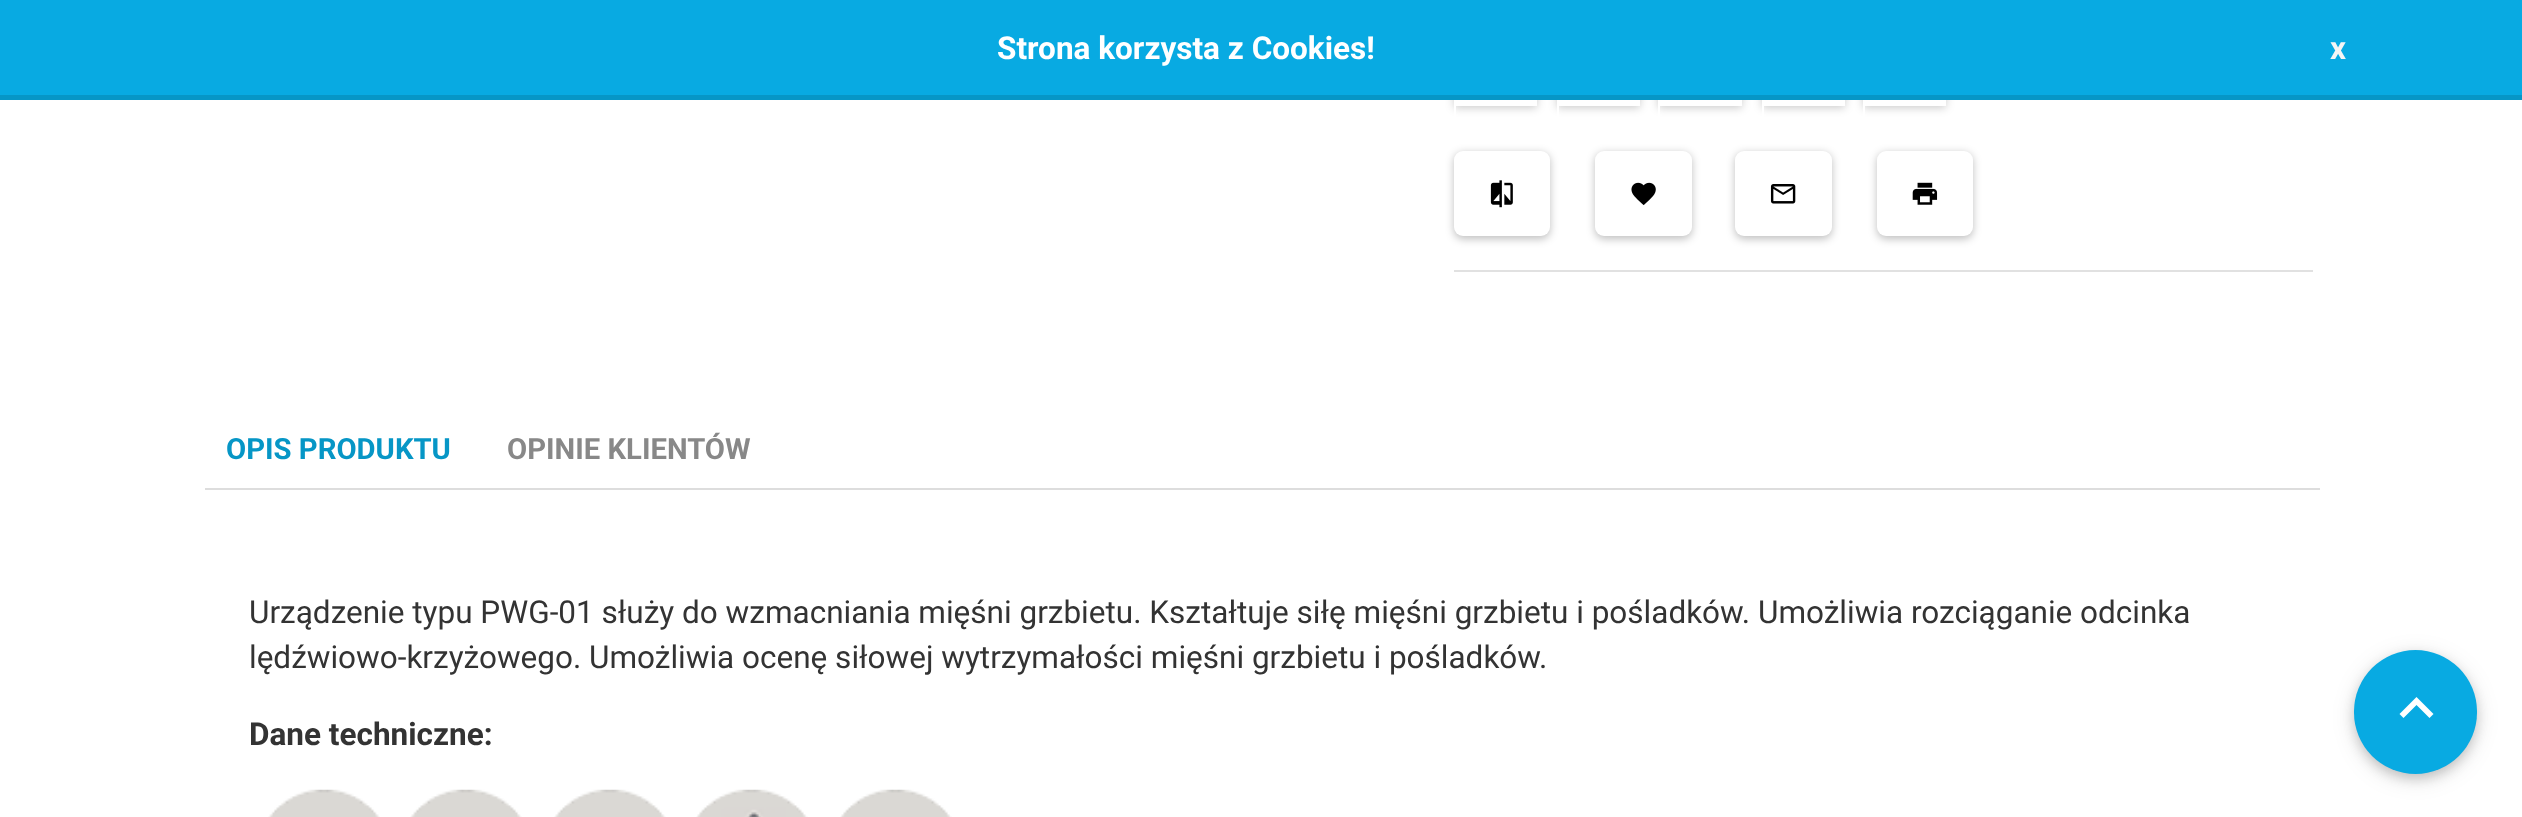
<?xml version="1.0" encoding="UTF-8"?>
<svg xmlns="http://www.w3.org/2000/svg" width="2522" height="817">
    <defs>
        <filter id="blur1" x="-50%" y="-200%" width="200%" height="500%"><feGaussianBlur stdDeviation="4.5"/></filter>
        <filter id="blur2" x="-50%" y="-200%" width="200%" height="500%"><feGaussianBlur stdDeviation="11"/></filter>
        <filter id="blur3" x="-50%" y="-200%" width="200%" height="500%"><feGaussianBlur stdDeviation="5.5"/></filter>
    </defs>
    <rect width="100%" height="100%" fill="#FFFFFF"/>
    <rect x="1454" y="25" width="83" height="83" fill="#000000" fill-opacity="0.2" filter="url(#blur1)"/>
    <rect x="1458.5" y="27.5" width="74" height="74" fill="none" stroke="#FFFFFF" stroke-width="9"/>
    <rect x="1455" y="24" width="94" height="94" fill="none" stroke="#FFFFFF" stroke-width="2"/>
    <rect x="1557" y="25" width="83" height="83" fill="#000000" fill-opacity="0.2" filter="url(#blur1)"/>
    <rect x="1561.5" y="27.5" width="74" height="74" fill="none" stroke="#FFFFFF" stroke-width="9"/>
    <rect x="1558" y="24" width="95" height="94" fill="none" stroke="#FFFFFF" stroke-width="2"/>
    <rect x="1658" y="25" width="84" height="83" fill="#000000" fill-opacity="0.2" filter="url(#blur1)"/>
    <rect x="1662.5" y="27.5" width="75" height="74" fill="none" stroke="#FFFFFF" stroke-width="9"/>
    <rect x="1659" y="24" width="95" height="94" fill="none" stroke="#FFFFFF" stroke-width="2"/>
    <rect x="1762" y="25" width="83" height="83" fill="#000000" fill-opacity="0.2" filter="url(#blur1)"/>
    <rect x="1766.5" y="27.5" width="74" height="74" fill="none" stroke="#FFFFFF" stroke-width="9"/>
    <rect x="1763" y="24" width="95" height="94" fill="none" stroke="#FFFFFF" stroke-width="2"/>
    <rect x="1863" y="25" width="83" height="83" fill="#000000" fill-opacity="0.2" filter="url(#blur1)"/>
    <rect x="1867.5" y="27.5" width="74" height="74" fill="none" stroke="#FFFFFF" stroke-width="9"/>
    <rect x="1864" y="24" width="95" height="94" fill="none" stroke="#FFFFFF" stroke-width="2"/>
    <rect x="0" y="0" width="2522" height="95" fill="#08AAE2"/>
    <rect x="0" y="95" width="2522" height="5" fill="#0696C6"/>
    <text x="997" y="59" font-family="Roboto" font-size="31.5" font-weight="700" fill="#FFFFFF">Strona korzysta z Cookies!</text>
    <text x="2330" y="59" font-family="Roboto" font-size="31.5" font-weight="700" fill="#F5F5F5">x</text>
    <rect x="1454" y="270" width="859" height="2" fill="#E1E1E1"/>
    <rect x="1454" y="153" width="96" height="86" rx="9" fill="#000000" fill-opacity="0.25" filter="url(#blur1)"/>
    <rect x="1454" y="151" width="96" height="85" rx="9" fill="#FFFFFF"/>
    <image x="1490" y="180" width="23" height="28" href="img_01.png"/>
    <rect x="1595" y="153" width="97" height="86" rx="9" fill="#000000" fill-opacity="0.25" filter="url(#blur1)"/>
    <rect x="1595" y="151" width="97" height="85" rx="9" fill="#FFFFFF"/>
    <image x="1631" y="182" width="25" height="24" href="img_02.png"/>
    <rect x="1735" y="153" width="97" height="86" rx="9" fill="#000000" fill-opacity="0.25" filter="url(#blur1)"/>
    <rect x="1735" y="151" width="97" height="85" rx="9" fill="#FFFFFF"/>
    <image x="1770" y="184" width="26" height="20" href="img_03.png"/>
    <rect x="1877" y="153" width="96" height="86" rx="9" fill="#000000" fill-opacity="0.25" filter="url(#blur1)"/>
    <rect x="1877" y="151" width="96" height="85" rx="9" fill="#FFFFFF"/>
    <image x="1912" y="182" width="26" height="23" href="img_04.png"/>
    <rect x="205" y="488" width="2115" height="2" fill="#DDDDDD"/>
    <text x="226" y="459" font-family="Roboto" font-size="29.25" font-weight="700" fill="#0696C6">OPIS PRODUKTU</text>
    <text x="507" y="459" font-family="Roboto" font-size="29.25" font-weight="700" fill="#888888">OPINIE KLIENTÓW</text>
    <text font-family="Roboto" font-size="31.5" fill="#333333">
        <tspan x="249" y="623">Urządzenie typu PWG-01 służy do wzmacniania mięśni grzbietu. Kształtuje siłę mięśni grzbietu i pośladków. Umożliwia rozciąganie odcinka</tspan>
        <tspan x="249" y="668">lędźwiowo-krzyżowego. Umożliwia ocenę siłowej wytrzymałości mięśni grzbietu i pośladków.</tspan>
    </text>
    <text x="249" y="745" font-family="Roboto" font-size="31.5" font-weight="700" fill="#333333">Dane techniczne:</text>
    <image x="268" y="789" width="112" height="28" href="img_05.png"/>
    <image x="410" y="789" width="112" height="28" href="img_06.png"/>
    <image x="554" y="789" width="112" height="28" href="img_07.png"/>
    <image x="696" y="789" width="112" height="28" href="img_08.png"/>
    <image x="840" y="789" width="112" height="28" href="img_09.png"/>
    <rect x="2354" y="655" width="123" height="124" rx="61.5" fill="#000000" fill-opacity="0.12" filter="url(#blur2)"/>
    <rect x="2354" y="655" width="123" height="124" rx="61.5" fill="#000000" fill-opacity="0.16" filter="url(#blur3)"/>
    <rect x="2354" y="650" width="123" height="124" rx="61.5" fill="#08AAE2"/>
    <path d="M 2403.5 718 L 2416.5 705 L 2429.5 718 L 2433.5 714 L 2416.5 697 L 2399.5 714 Z" fill="#FFFFFF"/>
</svg>
